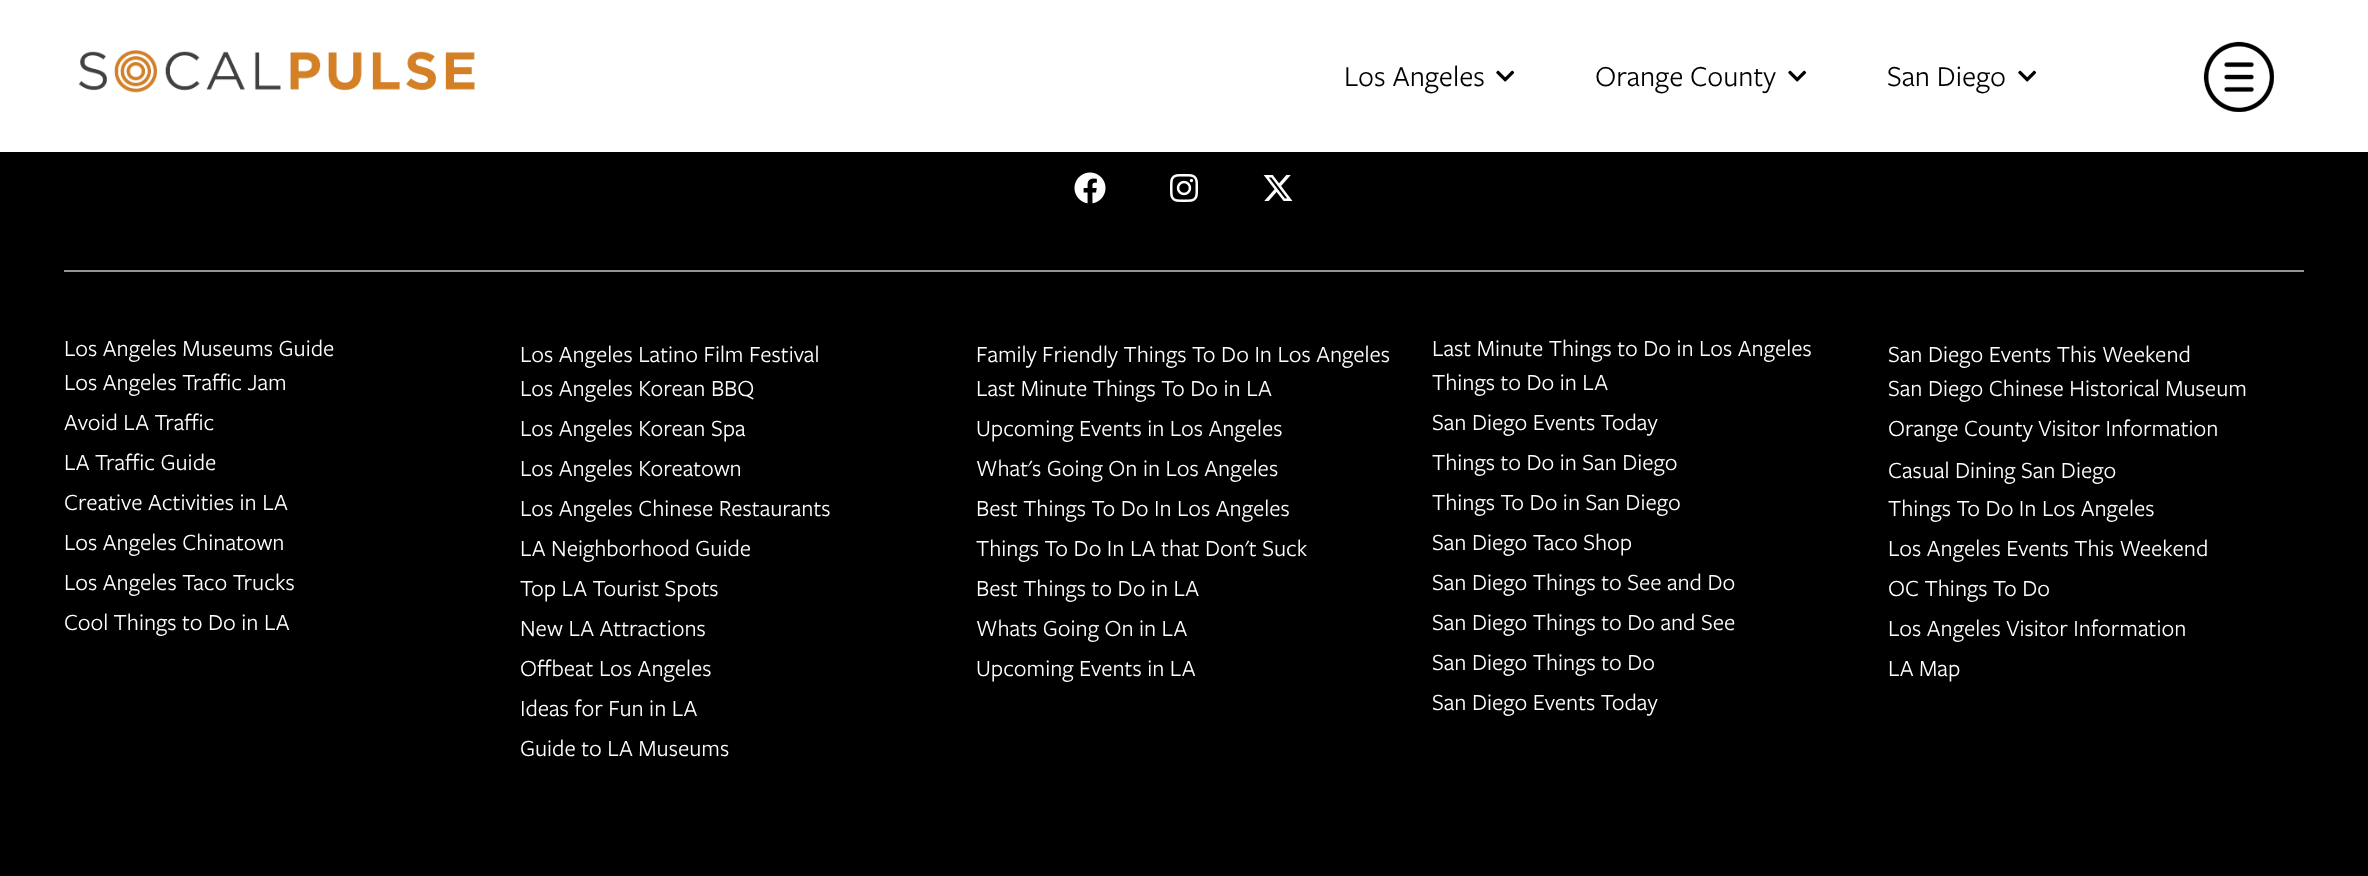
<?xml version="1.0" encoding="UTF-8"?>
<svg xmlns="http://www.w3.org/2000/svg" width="2368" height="876">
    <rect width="100%" height="100%" fill="#000000"/>
    <rect x="0" y="0" width="2368" height="152" fill="#FFFFFF"/>
    <image x="78" y="50" width="397" height="43" href="img_01.png"/>
    <text x="1344" y="86" font-family="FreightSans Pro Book" font-size="30" fill="#000000">Los Angeles</text>
    <image x="1496" y="70" width="19" height="12" href="img_02.png"/>
    <text x="1595" y="86" font-family="FreightSans Pro Book" font-size="30" fill="#000000">Orange County</text>
    <image x="1788" y="70" width="19" height="12" href="img_02.png"/>
    <text x="1887" y="86" font-family="FreightSans Pro Book" font-size="30" fill="#000000">San Diego</text>
    <image x="2018" y="70" width="19" height="12" href="img_02.png"/>
    <image x="2203" y="41" width="71" height="71" href="img_03.png"/>
    <image x="1074" y="172" width="32" height="32" href="img_04.png"/>
    <image x="1170" y="173" width="29" height="29" href="img_05.png"/>
    <image x="1263" y="175" width="30" height="26" href="img_06.png"/>
    <rect x="64" y="270" width="2240" height="2" fill="#949494"/>
    <text font-family="FreightSans Pro Book" font-size="24" fill="#FFFFFF">
        <tspan x="64" y="356">Los Angeles Museums Guide</tspan>
        <tspan x="64" y="390">Los Angeles Traffic Jam</tspan>
        <tspan x="64" y="430">Avoid LA Traffic</tspan>
        <tspan x="64" y="470">LA Traffic Guide</tspan>
        <tspan x="64" y="510">Creative Activities in LA</tspan>
        <tspan x="64" y="550">Los Angeles Chinatown</tspan>
        <tspan x="64" y="590">Los Angeles Taco Trucks</tspan>
        <tspan x="64" y="630">Cool Things to Do in LA</tspan>
    </text>
    <text font-family="FreightSans Pro Book" font-size="24" fill="#FFFFFF">
        <tspan x="520" y="362">Los Angeles Latino Film Festival</tspan>
        <tspan x="520" y="396">Los Angeles Korean BBQ</tspan>
        <tspan x="520" y="436">Los Angeles Korean Spa</tspan>
        <tspan x="520" y="476">Los Angeles Koreatown</tspan>
        <tspan x="520" y="516">Los Angeles Chinese Restaurants</tspan>
        <tspan x="520" y="556">LA Neighborhood Guide</tspan>
        <tspan x="520" y="596">Top LA Tourist Spots</tspan>
        <tspan x="520" y="636">New LA Attractions</tspan>
        <tspan x="520" y="676">Offbeat Los Angeles</tspan>
        <tspan x="520" y="716">Ideas for Fun in LA</tspan>
        <tspan x="520" y="756">Guide to LA Museums</tspan>
    </text>
    <text font-family="FreightSans Pro Book" font-size="24" fill="#FFFFFF">
        <tspan x="976" y="362">Family Friendly Things To Do In Los Angeles</tspan>
        <tspan x="976" y="396">Last Minute Things To Do in LA</tspan>
        <tspan x="976" y="436">Upcoming Events in Los Angeles</tspan>
        <tspan x="976" y="476">What's Going On in Los Angeles</tspan>
        <tspan x="976" y="516">Best Things To Do In Los Angeles</tspan>
        <tspan x="976" y="556">Things To Do In LA that Don't Suck</tspan>
        <tspan x="976" y="596">Best Things to Do in LA</tspan>
        <tspan x="976" y="636">Whats Going On in LA</tspan>
        <tspan x="976" y="676">Upcoming Events in LA</tspan>
    </text>
    <text font-family="FreightSans Pro Book" font-size="24" fill="#FFFFFF">
        <tspan x="1432" y="356">Last Minute Things to Do in Los Angeles</tspan>
        <tspan x="1432" y="390">Things to Do in LA</tspan>
        <tspan x="1432" y="430">San Diego Events Today</tspan>
        <tspan x="1432" y="470">Things to Do in San Diego</tspan>
        <tspan x="1432" y="510">Things To Do in San Diego</tspan>
        <tspan x="1432" y="550">San Diego Taco Shop</tspan>
        <tspan x="1432" y="590">San Diego Things to See and Do</tspan>
        <tspan x="1432" y="630">San Diego Things to Do and See</tspan>
        <tspan x="1432" y="670">San Diego Things to Do</tspan>
        <tspan x="1432" y="710">San Diego Events Today</tspan>
    </text>
    <text font-family="FreightSans Pro Book" font-size="24" fill="#FFFFFF">
        <tspan x="1888" y="362">San Diego Events This Weekend</tspan>
        <tspan x="1888" y="396">San Diego Chinese Historical Museum</tspan>
        <tspan x="1888" y="436">Orange County Visitor Information</tspan>
        <tspan x="1888" y="478">Casual Dining San Diego</tspan>
        <tspan x="1888" y="516">Things To Do In Los Angeles</tspan>
        <tspan x="1888" y="556">Los Angeles Events This Weekend</tspan>
        <tspan x="1888" y="596">OC Things To Do</tspan>
        <tspan x="1888" y="636">Los Angeles Visitor Information</tspan>
        <tspan x="1888" y="676">LA Map</tspan>
    </text>
</svg>
